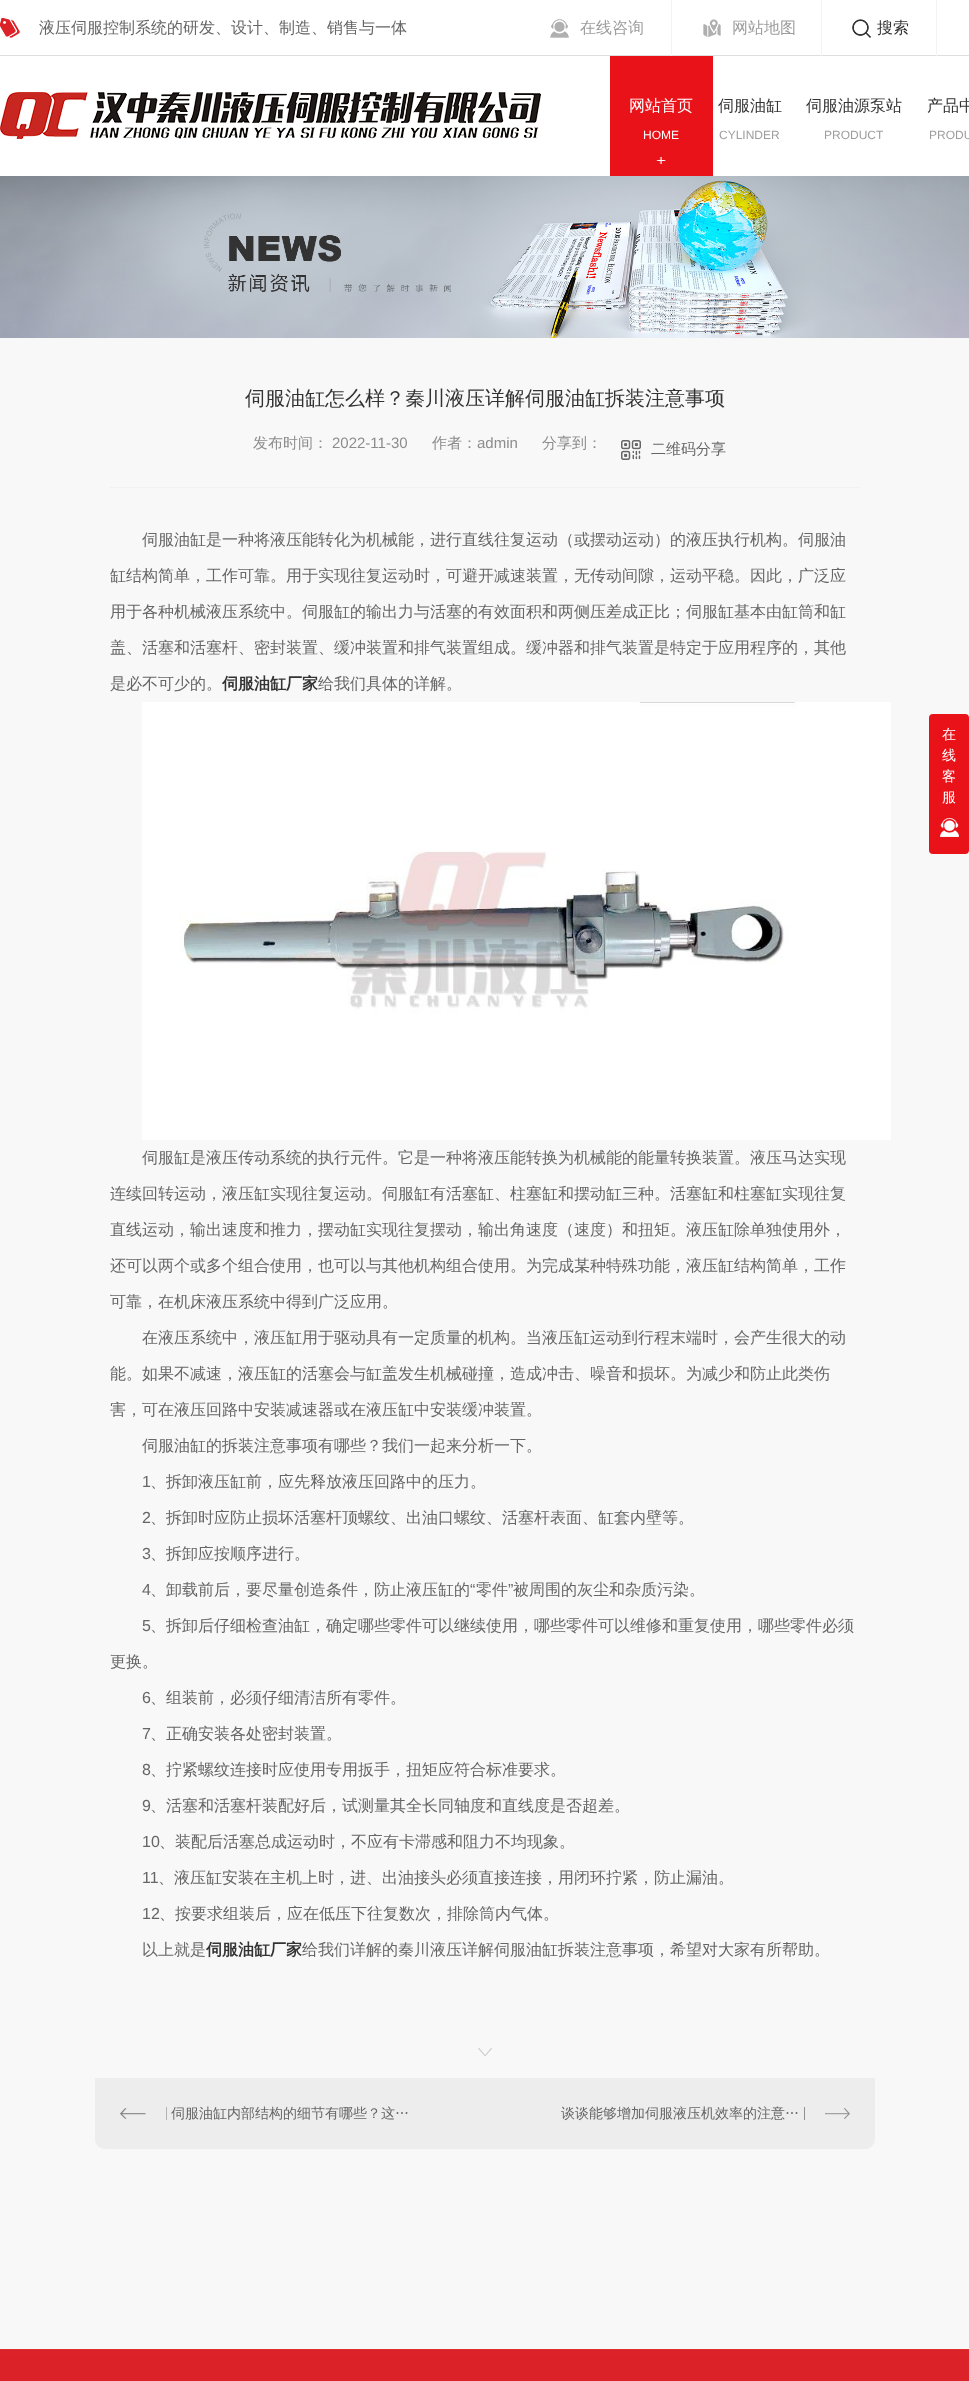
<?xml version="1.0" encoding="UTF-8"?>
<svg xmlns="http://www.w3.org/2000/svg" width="969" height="2381">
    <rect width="100%" height="100%" fill="#FFFFFF"/>
    <rect x="0" y="55" width="969" height="1" fill="#DEDEDE"/>
    <image x="0" y="18" width="20" height="20" href="img_01.png"/>
    <text x="39" y="33" font-family="WenQuanYi Zen Hei" font-size="16" font-weight="500" fill="#666666">液压伺服控制系统的研发、设计、制造、销售与一体</text>
    <image x="550" y="19" width="19" height="19" href="img_02.png"/>
    <rect x="671" y="0" width="1" height="56" fill="#F3F3F3"/>
    <text x="580" y="33" font-family="WenQuanYi Zen Hei" font-size="16" font-weight="500" fill="#9D9D9D">在线咨询</text>
    <image x="703" y="19" width="18" height="18" href="img_03.png"/>
    <rect x="821" y="0" width="1" height="56" fill="#F3F3F3"/>
    <text x="732" y="33" font-family="WenQuanYi Zen Hei" font-size="16" font-weight="500" fill="#9D9D9D">网站地图</text>
    <image x="852" y="19" width="19" height="19" href="img_04.png"/>
    <rect x="936" y="0" width="1" height="56" fill="#F3F3F3"/>
    <text x="877" y="33" font-family="WenQuanYi Zen Hei" font-size="16" font-weight="500" fill="#333333">搜索</text>
    <image x="0" y="92" width="541" height="47" href="img_05.png"/>
    <rect x="610" y="56" width="103" height="120" fill="#EA1219"/>
    <image x="656" y="157" width="10" height="7" href="img_06.png"/>
    <text x="629" y="111" font-family="WenQuanYi Zen Hei" font-size="16" font-weight="500" fill="#FFFFFF">网站首页</text>
    <text x="643" y="139" font-family="Liberation Sans" font-size="12" fill="#FFFFFF">HOME</text>
    <text x="718" y="111" font-family="WenQuanYi Zen Hei" font-size="16" font-weight="500" fill="#333333">伺服油缸</text>
    <text x="719" y="139" font-family="Liberation Sans" font-size="12" fill="#9D9D9D">CYLINDER</text>
    <text x="806" y="111" font-family="WenQuanYi Zen Hei" font-size="16" font-weight="500" fill="#333333">伺服油源泵站</text>
    <text x="824" y="139" font-family="Liberation Sans" font-size="12" fill="#9D9D9D">PRODUCT</text>
    <text x="927" y="111" font-family="WenQuanYi Zen Hei" font-size="16" font-weight="500" fill="#333333">产品中</text>
    <text x="929" y="139" font-family="Liberation Sans" font-size="12" fill="#9D9D9D">PRODU</text>
    <image x="0" y="176" width="969" height="162" href="img_07.png"/>
    <rect x="0" y="338" width="969" height="2011" fill="#F8F8F8"/>
    <text x="245" y="405" font-family="WenQuanYi Zen Hei" font-size="20" font-weight="500" fill="#333333">伺服油缸怎么样？秦川液压详解伺服油缸拆装注意事项</text>
    <rect x="110" y="487" width="750" height="1" fill="#F2F0F0"/>
    <text x="253" y="448" font-family="WenQuanYi Zen Hei" font-size="15" font-weight="500" fill="#8C8C8C">发布时间：</text>
    <text x="332" y="448" font-family="Liberation Sans" font-size="15" fill="#8C8C8C">2022-11-30</text>
    <text x="432" y="448" font-family="WenQuanYi Zen Hei" font-size="15" font-weight="500" fill="#8C8C8C">作者：</text>
    <text x="477" y="448" font-family="Liberation Sans" font-size="15" fill="#8C8C8C">admin</text>
    <text x="542" y="448" font-family="WenQuanYi Zen Hei" font-size="15" font-weight="500" fill="#8C8C8C">分享到：</text>
    <image x="621" y="440" width="20" height="20" href="img_08.png"/>
    <text x="651" y="454" font-family="WenQuanYi Zen Hei" font-size="15" font-weight="500" fill="#666666">二维码分享</text>
    <text x="142" y="545" font-family="WenQuanYi Zen Hei" font-size="16" font-weight="500" fill="#666666">伺服油缸是一种将液压能转化为机械能，进行直线往复运动（或摆动运动）的液压执行机构。伺服油</text>
    <text x="110" y="581" font-family="WenQuanYi Zen Hei" font-size="16" font-weight="500" fill="#666666">缸结构简单，工作可靠。用于实现往复运动时，可避开减速装置，无传动间隙，运动平稳。因此，广泛应</text>
    <text x="110" y="617" font-family="WenQuanYi Zen Hei" font-size="16" font-weight="500" fill="#666666">用于各种机械液压系统中。伺服缸的输出力与活塞的有效面积和两侧压差成正比；伺服缸基本由缸筒和缸</text>
    <text x="110" y="653" font-family="WenQuanYi Zen Hei" font-size="16" font-weight="500" fill="#666666">盖、活塞和活塞杆、密封装置、缓冲装置和排气装置组成。缓冲器和排气装置是特定于应用程序的，其他</text>
    <text x="110" y="689" font-family="WenQuanYi Zen Hei" font-size="16" font-weight="500" fill="#666666">是必不可少的。</text>
    <text x="222" y="689" font-family="WenQuanYi Zen Hei" font-size="16" font-weight="700" fill="#333333">伺服油缸厂家</text>
    <text x="318" y="689" font-family="WenQuanYi Zen Hei" font-size="16" font-weight="500" fill="#666666">给我们具体的详解。</text>
    <image x="142" y="702" width="749" height="438" href="img_09.png"/>
    <text x="142" y="1163" font-family="WenQuanYi Zen Hei" font-size="16" font-weight="500" fill="#666666">伺服缸是液压传动系统的执行元件。它是一种将液压能转换为机械能的能量转换装置。液压马达实现</text>
    <text x="110" y="1199" font-family="WenQuanYi Zen Hei" font-size="16" font-weight="500" fill="#666666">连续回转运动，液压缸实现往复运动。伺服缸有活塞缸、柱塞缸和摆动缸三种。活塞缸和柱塞缸实现往复</text>
    <text x="110" y="1235" font-family="WenQuanYi Zen Hei" font-size="16" font-weight="500" fill="#666666">直线运动，输出速度和推力，摆动缸实现往复摆动，输出角速度（速度）和扭矩。液压缸除单独使用外，</text>
    <text x="110" y="1271" font-family="WenQuanYi Zen Hei" font-size="16" font-weight="500" fill="#666666">还可以两个或多个组合使用，也可以与其他机构组合使用。为完成某种特殊功能，液压缸结构简单，工作</text>
    <text x="110" y="1307" font-family="WenQuanYi Zen Hei" font-size="16" font-weight="500" fill="#666666">可靠，在机床液压系统中得到广泛应用。</text>
    <text x="142" y="1343" font-family="WenQuanYi Zen Hei" font-size="16" font-weight="500" fill="#666666">在液压系统中，液压缸用于驱动具有一定质量的机构。当液压缸运动到行程末端时，会产生很大的动</text>
    <text x="110" y="1379" font-family="WenQuanYi Zen Hei" font-size="16" font-weight="500" fill="#666666">能。如果不减速，液压缸的活塞会与缸盖发生机械碰撞，造成冲击、噪音和损坏。为减少和防止此类伤</text>
    <text x="110" y="1415" font-family="WenQuanYi Zen Hei" font-size="16" font-weight="500" fill="#666666">害，可在液压回路中安装减速器或在液压缸中安装缓冲装置。</text>
    <text x="142" y="1451" font-family="WenQuanYi Zen Hei" font-size="16" font-weight="500" fill="#666666">伺服油缸的拆装注意事项有哪些？我们一起来分析一下。</text>
    <text x="142" y="1487" font-family="Liberation Sans" font-size="16" fill="#666666">1</text>
    <text x="150" y="1487" font-family="WenQuanYi Zen Hei" font-size="16" font-weight="500" fill="#666666">、拆卸液压缸前，应先释放液压回路中的压力。</text>
    <text x="142" y="1523" font-family="Liberation Sans" font-size="16" fill="#666666">2</text>
    <text x="150" y="1523" font-family="WenQuanYi Zen Hei" font-size="16" font-weight="500" fill="#666666">、拆卸时应防止损坏活塞杆顶螺纹、出油口螺纹、活塞杆表面、缸套内壁等。</text>
    <text x="142" y="1559" font-family="Liberation Sans" font-size="16" fill="#666666">3</text>
    <text x="150" y="1559" font-family="WenQuanYi Zen Hei" font-size="16" font-weight="500" fill="#666666">、拆卸应按顺序进行。</text>
    <text x="142" y="1595" font-family="Liberation Sans" font-size="16" fill="#666666">4</text>
    <text x="150" y="1595" font-family="WenQuanYi Zen Hei" font-size="16" font-weight="500" fill="#666666">、卸载前后，要尽量创造条件，防止液压缸的</text>
    <text x="470" y="1595" font-family="Liberation Sans" font-size="16" fill="#666666">“</text>
    <text x="476" y="1595" font-family="WenQuanYi Zen Hei" font-size="16" font-weight="500" fill="#666666">零件</text>
    <text x="508" y="1595" font-family="Liberation Sans" font-size="16" fill="#666666">”</text>
    <text x="513" y="1595" font-family="WenQuanYi Zen Hei" font-size="16" font-weight="500" fill="#666666">被周围的灰尘和杂质污染。</text>
    <text x="142" y="1631" font-family="Liberation Sans" font-size="16" fill="#666666">5</text>
    <text x="150" y="1631" font-family="WenQuanYi Zen Hei" font-size="16" font-weight="500" fill="#666666">、拆卸后仔细检查油缸，确定哪些零件可以继续使用，哪些零件可以维修和重复使用，哪些零件必须</text>
    <text x="110" y="1667" font-family="WenQuanYi Zen Hei" font-size="16" font-weight="500" fill="#666666">更换。</text>
    <text x="142" y="1703" font-family="Liberation Sans" font-size="16" fill="#666666">6</text>
    <text x="150" y="1703" font-family="WenQuanYi Zen Hei" font-size="16" font-weight="500" fill="#666666">、组装前，必须仔细清洁所有零件。</text>
    <text x="142" y="1739" font-family="Liberation Sans" font-size="16" fill="#666666">7</text>
    <text x="150" y="1739" font-family="WenQuanYi Zen Hei" font-size="16" font-weight="500" fill="#666666">、正确安装各处密封装置。</text>
    <text x="142" y="1775" font-family="Liberation Sans" font-size="16" fill="#666666">8</text>
    <text x="150" y="1775" font-family="WenQuanYi Zen Hei" font-size="16" font-weight="500" fill="#666666">、拧紧螺纹连接时应使用专用扳手，扭矩应符合标准要求。</text>
    <text x="142" y="1811" font-family="Liberation Sans" font-size="16" fill="#666666">9</text>
    <text x="150" y="1811" font-family="WenQuanYi Zen Hei" font-size="16" font-weight="500" fill="#666666">、活塞和活塞杆装配好后，试测量其全长同轴度和直线度是否超差。</text>
    <text x="142" y="1847" font-family="Liberation Sans" font-size="16" fill="#666666">10</text>
    <text x="159" y="1847" font-family="WenQuanYi Zen Hei" font-size="16" font-weight="500" fill="#666666">、装配后活塞总成运动时，不应有卡滞感和阻力不均现象。</text>
    <text x="142" y="1883" font-family="Liberation Sans" font-size="16" fill="#666666">11</text>
    <text x="158" y="1883" font-family="WenQuanYi Zen Hei" font-size="16" font-weight="500" fill="#666666">、液压缸安装在主机上时，进、出油接头必须直接连接，用闭环拧紧，防止漏油。</text>
    <text x="142" y="1919" font-family="Liberation Sans" font-size="16" fill="#666666">12</text>
    <text x="159" y="1919" font-family="WenQuanYi Zen Hei" font-size="16" font-weight="500" fill="#666666">、按要求组装后，应在低压下往复数次，排除筒内气体。</text>
    <text x="142" y="1955" font-family="WenQuanYi Zen Hei" font-size="16" font-weight="500" fill="#666666">以上就是</text>
    <text x="206" y="1955" font-family="WenQuanYi Zen Hei" font-size="16" font-weight="700" fill="#333333">伺服油缸厂家</text>
    <text x="302" y="1955" font-family="WenQuanYi Zen Hei" font-size="16" font-weight="500" fill="#666666">给我们详解的秦川液压详解伺服油缸拆装注意事项，希望对大家有所帮助。</text>
    <image x="478" y="2048" width="14" height="8" href="img_10.png"/>
    <path d="M 95 2078 H 485 V 2149 H 105 C 99.5 2149 95 2144.5 95 2139 Z" fill="#EDEDED"/>
    <image x="120" y="2107" width="47" height="13" href="img_11.png"/>
    <text x="171" y="2118" font-family="WenQuanYi Zen Hei" font-size="14" font-weight="500" fill="#666666">伺服油缸内部结构的细节有哪些？这…</text>
    <path d="M 485 2078 H 875 V 2139 C 875 2144.5 870.5 2149 865 2149 H 485 Z" fill="#EDEDED"/>
    <image x="804" y="2107" width="46" height="13" href="img_12.png"/>
    <text x="561" y="2118" font-family="WenQuanYi Zen Hei" font-size="14" font-weight="500" fill="#666666">谈谈能够增加伺服液压机效率的注意…</text>
    <rect x="929" y="714" width="40" height="140" rx="4" fill="#EA1219"/>
    <text font-family="WenQuanYi Zen Hei" font-size="14" font-weight="500" fill="#FFFFFF">
        <tspan x="942" y="739">在</tspan>
        <tspan x="942" y="760">线</tspan>
        <tspan x="942" y="781">客</tspan>
        <tspan x="942" y="802">服</tspan>
    </text>
    <image x="940" y="818" width="19" height="19" href="img_13.png"/>
    <image x="0" y="2349" width="969" height="32" href="img_14.png"/>
</svg>
